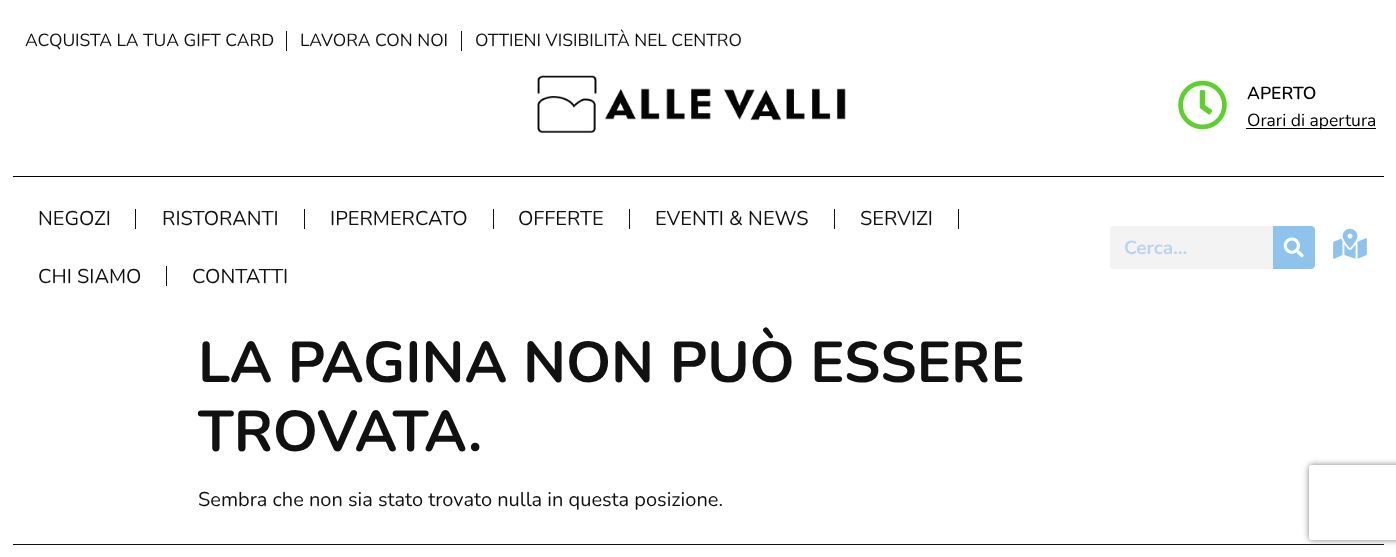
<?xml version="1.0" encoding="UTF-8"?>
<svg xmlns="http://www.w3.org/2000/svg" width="1396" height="557">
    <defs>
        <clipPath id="clip1"><path d="M 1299 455 H 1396 V 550 H 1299 Z M 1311.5 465 H 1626.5 C 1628 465 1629 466 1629 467.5 V 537.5 C 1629 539 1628 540 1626.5 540 H 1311.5 C 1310 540 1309 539 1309 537.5 V 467.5 C 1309 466 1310 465 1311.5 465 Z" clip-rule="evenodd"/></clipPath>
        <filter id="blur1" x="-50%" y="-200%" width="200%" height="500%"><feGaussianBlur stdDeviation="3"/></filter>
    </defs>
    <rect width="100%" height="100%" fill="#FFFFFF"/>
    <text x="25" y="46" font-family="Nunito" font-size="17.5" fill="#111111">ACQUISTA LA TUA GIFT CARD</text>
    <rect x="286" y="31" width="1" height="20" fill="#111111"/>
    <text x="300" y="46" font-family="Nunito" font-size="17.5" fill="#111111">LAVORA CON NOI</text>
    <rect x="461" y="31" width="1" height="20" fill="#111111"/>
    <text x="475" y="46" font-family="Nunito" font-size="17.5" fill="#111111">OTTIENI VISIBILITÀ NEL CENTRO</text>
    <image x="537" y="75" width="309" height="58" href="img_01.png"/>
    <image x="1178" y="80" width="49" height="50" href="img_02.png"/>
    <text x="1247" y="99" font-family="Nunito" font-size="17.5" font-weight="600" fill="#000000">APERTO</text>
    <rect x="1246" y="128" width="130" height="1" fill="#000000"/>
    <text x="1247" y="126" font-family="Nunito" font-size="17.5" fill="#000000">Orari di apertura</text>
    <rect x="13" y="176" width="1371" height="1" fill="#000000"/>
    <text x="38" y="225" font-family="Nunito" font-size="20" fill="#111111">NEGOZI</text>
    <rect x="135" y="209" width="1" height="20" fill="#111111"/>
    <text x="162" y="225" font-family="Nunito" font-size="20" fill="#111111">RISTORANTI</text>
    <rect x="304" y="209" width="1" height="20" fill="#111111"/>
    <text x="330" y="225" font-family="Nunito" font-size="20" fill="#111111">IPERMERCATO</text>
    <rect x="493" y="209" width="1" height="20" fill="#111111"/>
    <text x="518" y="225" font-family="Nunito" font-size="20" fill="#111111">OFFERTE</text>
    <rect x="629" y="209" width="1" height="20" fill="#111111"/>
    <text x="655" y="225" font-family="Nunito" font-size="20" fill="#111111">EVENTI &amp; NEWS</text>
    <rect x="834" y="209" width="1" height="20" fill="#111111"/>
    <text x="860" y="225" font-family="Nunito" font-size="20" fill="#111111">SERVIZI</text>
    <rect x="958" y="209" width="1" height="20" fill="#111111"/>
    <text x="38" y="283" font-family="Nunito" font-size="20" fill="#111111">CHI SIAMO</text>
    <rect x="166" y="266" width="1" height="20" fill="#111111"/>
    <text x="192" y="283" font-family="Nunito" font-size="20" fill="#111111">CONTATTI</text>
    <rect x="1110" y="226" width="205" height="43" rx="4" fill="#F3F3F3"/>
    <text x="1124" y="254" font-family="Nunito" font-size="19" font-weight="700" fill="#B6D6EF">Cerca...</text>
    <path d="M 1273 226 H 1311 C 1313 226 1315 228 1315 230 V 265 C 1315 267 1313 269 1311 269 H 1273 Z" fill="#8EC3ED"/>
    <image x="1283" y="237" width="21" height="21" href="img_03.png"/>
    <image x="1333" y="228" width="34" height="31" href="img_04.png"/>
    <text font-family="Nunito" font-size="57.5" font-weight="700" fill="#111111">
        <tspan x="198" y="382">LA PAGINA NON PUÒ ESSERE</tspan>
        <tspan x="198" y="451">TROVATA.</tspan>
    </text>
    <text x="198" y="506" font-family="Nunito" font-size="20" fill="#111111">Sembra che non sia stato trovato nulla in questa posizione.</text>
    <rect x="13" y="544" width="1371" height="1" fill="#111111"/>
    <g clip-path="url(#clip1)">
        <rect x="1309" y="465" width="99" height="75" rx="2.5" fill="#808080" filter="url(#blur1)"/>
    </g>
</svg>
